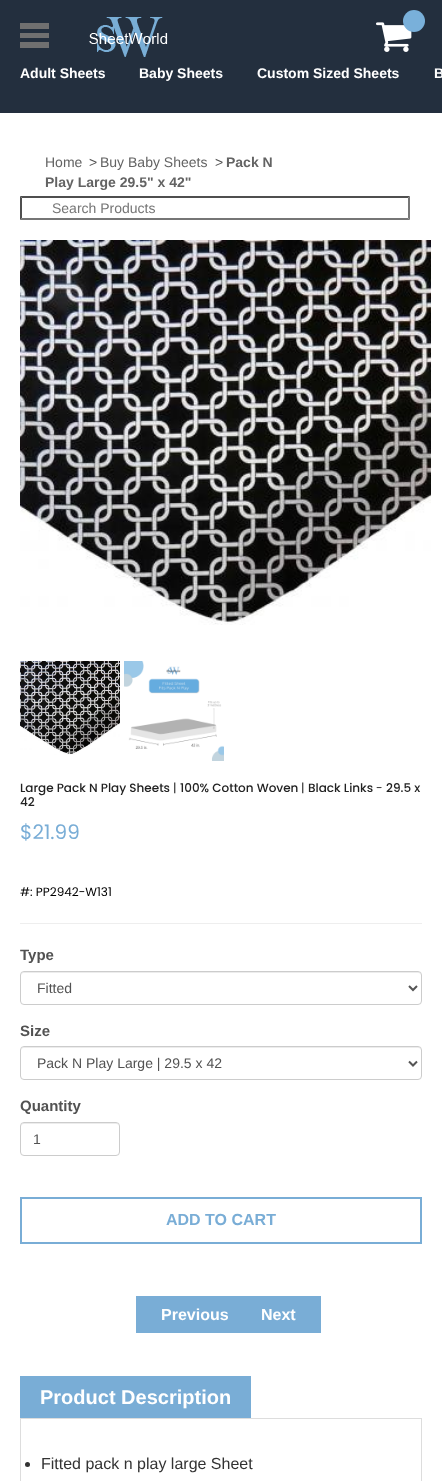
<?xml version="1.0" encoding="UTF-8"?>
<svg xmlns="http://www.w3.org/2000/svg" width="442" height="1481">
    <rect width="100%" height="100%" fill="#FFFFFF"/>
    <rect x="0" y="0" width="442" height="113" fill="#232F3E"/>
    <image x="20" y="23" width="29" height="25" href="img_01.png"/>
    <image x="89" y="17" width="79" height="40" href="img_02.png"/>
    <image x="376" y="22" width="36" height="30" href="img_03.png"/>
    <circle cx="414" cy="21" r="11" fill="#79B0DA"/>
    <text x="20" y="78" font-family="Liberation Sans" font-size="14" font-weight="700" fill="#FFFFFF">Adult Sheets</text>
    <text x="139" y="78" font-family="Liberation Sans" font-size="14" font-weight="700" fill="#FFFFFF">Baby Sheets</text>
    <text x="257" y="78" font-family="Liberation Sans" font-size="14" font-weight="700" fill="#FFFFFF">Custom Sized Sheets</text>
    <text x="434" y="78" font-family="Liberation Sans" font-size="14" font-weight="700" fill="#FFFFFF">B</text>
    <text x="45" y="167" font-family="Liberation Sans" font-size="14" fill="#636363">Home</text>
    <text x="89" y="167" font-family="Liberation Sans" font-size="14" fill="#525252">&gt;</text>
    <text x="100" y="167" font-family="Liberation Sans" font-size="14" fill="#636363">Buy Baby Sheets</text>
    <text x="215" y="167" font-family="Liberation Sans" font-size="14" fill="#525252">&gt;</text>
    <text x="226" y="167" font-family="Liberation Sans" font-size="14" font-weight="700" fill="#636363">Pack N</text>
    <text x="45" y="187" font-family="Liberation Sans" font-size="14" font-weight="700" fill="#636363">Play Large 29.5" x 42"</text>
    <path d="M 20 196 H 410 L 408 198 H 22 Z" fill="#4F4F4F"/>
    <path d="M 410 196 V 220 L 408 218 V 198 Z" fill="#767676"/>
    <path d="M 410 220 H 20 L 22 218 H 408 Z" fill="#767676"/>
    <path d="M 20 220 V 196 L 22 198 V 218 Z" fill="#4F4F4F"/>
    <text x="52" y="213" font-family="Liberation Sans" font-size="14" fill="#757575">Search Products</text>
    <image x="20" y="240" width="411" height="385" href="img_04.png"/>
    <image x="20" y="661" width="100" height="94" href="img_05.png"/>
    <image x="124" y="661" width="100" height="100" href="img_06.png"/>
    <text x="20" y="792" font-family="Poppins" font-size="12" font-weight="500" fill="#222222">Large Pack N Play Sheets</text>
    <text x="173" y="792" font-family="Poppins" font-size="12" fill="#222222">|</text>
    <text x="180" y="792" font-family="Poppins" font-size="12" font-weight="500" fill="#222222">100% Cotton Woven</text>
    <text x="301" y="792" font-family="Poppins" font-size="12" fill="#222222">|</text>
    <text x="308" y="792" font-family="Poppins" font-size="12" font-weight="500" fill="#222222">Black Links</text>
    <text x="376" y="792" font-family="Poppins" font-size="12" fill="#222222">-</text>
    <text x="386" y="792" font-family="Poppins" font-size="12" font-weight="500" fill="#222222">29.5 x</text>
    <text x="20" y="806" font-family="Poppins" font-size="12" font-weight="500" fill="#222222">42</text>
    <text x="20" y="839" font-family="Poppins" font-size="20" fill="#79ADD6">$21.99</text>
    <text x="20" y="896" font-family="Poppins" font-size="12" fill="#000000">#: PP2942-W131</text>
    <rect x="20" y="923" width="402" height="1" fill="#EEEEEE"/>
    <text x="20" y="960" font-family="Liberation Sans" font-size="15" font-weight="700" fill="#525252">Type</text>
    <path d="M 24 973 H 418 C 420 973 421 974 421 976 C 421 974 420 972 418 972 H 24 L 22 973 L 21 976 C 21 974 22 973 24 973 Z" fill="#ECECEC"/>
    <rect x="20.5" y="971.5" width="401" height="33" rx="3.5" fill="none" stroke="#CCCCCC"/>
    <path d="M 409 986 L 413 990 L 417 986" fill="none" stroke="#555555" stroke-width="2"/>
    <text x="37" y="993" font-family="Liberation Sans" font-size="14" fill="#525252">Fitted</text>
    <text x="20" y="1036" font-family="Liberation Sans" font-size="15" font-weight="700" fill="#525252">Size</text>
    <path d="M 24 1048 H 418 C 420 1048 421 1049 421 1051 C 421 1049 420 1047 418 1047 H 24 L 22 1048 L 21 1051 C 21 1049 22 1048 24 1048 Z" fill="#ECECEC"/>
    <rect x="20.5" y="1046.5" width="401" height="33" rx="3.5" fill="none" stroke="#CCCCCC"/>
    <path d="M 409 1061.5 L 413 1065.5 L 417 1061.5" fill="none" stroke="#555555" stroke-width="2"/>
    <text x="37" y="1068" font-family="Liberation Sans" font-size="14" fill="#525252">Pack N Play Large | 29.5 x 42</text>
    <text x="20" y="1111" font-family="Liberation Sans" font-size="15" font-weight="700" fill="#525252">Quantity</text>
    <path d="M 24 1124 H 116 C 118 1124 119 1125 119 1127 C 119 1119 104 1123 101 1123 H 39 C 36 1123 21 1119 21 1127 C 21 1125 22 1124 24 1124 Z" fill="#ECECEC"/>
    <rect x="20.5" y="1122.5" width="99" height="33" rx="3.5" fill="none" stroke="#CCCCCC"/>
    <text x="33" y="1144" font-family="Liberation Sans" font-size="14" fill="#525252">1</text>
    <rect x="21" y="1198" width="400" height="45" fill="none" stroke="#79ADD6" stroke-width="2"/>
    <text x="166" y="1225" font-family="Liberation Sans" font-size="16" font-weight="700" fill="#79ADD6">ADD TO CART</text>
    <rect x="136" y="1296" width="185" height="37" fill="#79ADD6"/>
    <text x="161" y="1320" font-family="Liberation Sans" font-size="16" font-weight="700" fill="#FFFFFF">Previous</text>
    <text x="261" y="1320" font-family="Liberation Sans" font-size="16" font-weight="700" fill="#FFFFFF">Next</text>
    <rect x="20" y="1376" width="231" height="42" fill="#79ADD6"/>
    <text x="40" y="1404" font-family="Liberation Sans" font-size="20" font-weight="700" fill="#FFFFFF">Product Description</text>
    <rect x="20.5" y="1418.5" width="401" height="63" fill="none" stroke="#DDDDDD"/>
    <circle cx="27.5" cy="1464.5" r="2.5" fill="#333333"/>
    <text x="41" y="1469" font-family="Liberation Sans" font-size="16" fill="#333333">Fitted pack n play large Sheet</text>
</svg>
